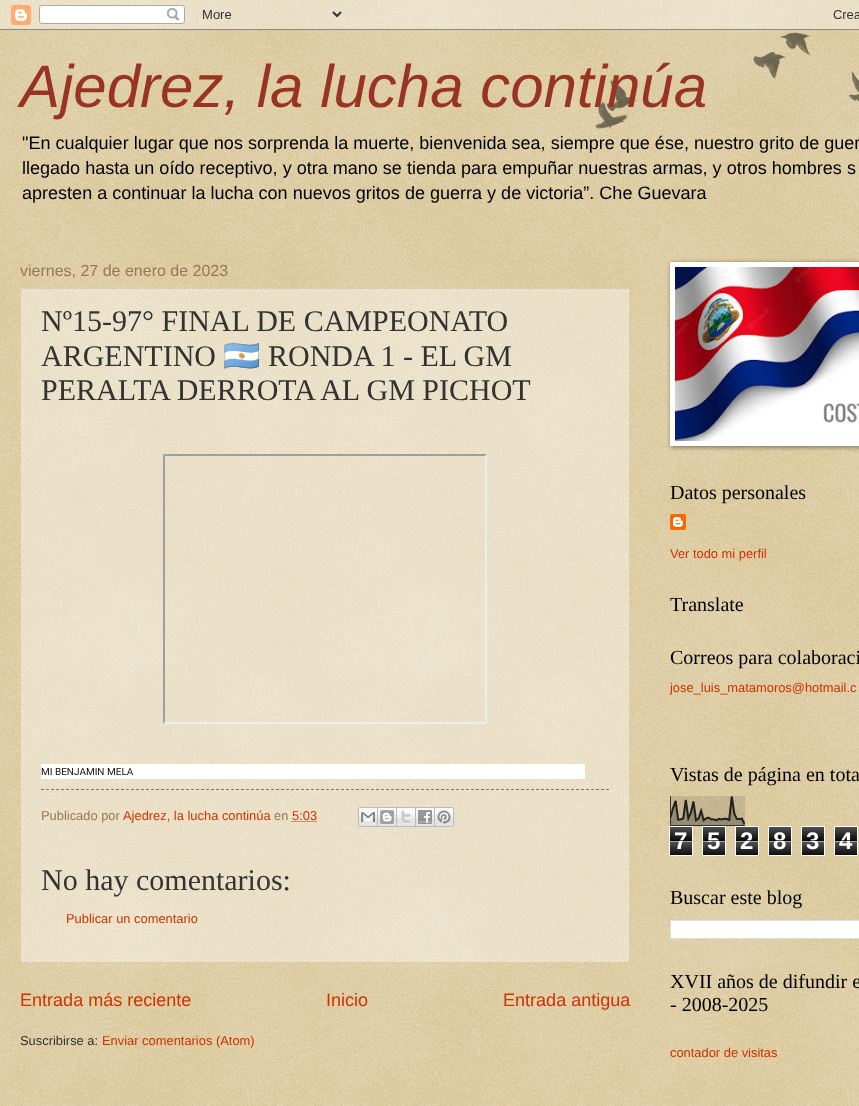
<?xml version="1.0" encoding="UTF-8"?>
<svg xmlns="http://www.w3.org/2000/svg" width="859" height="1106">
    <defs>
        <filter id="blur1" x="-50%" y="-200%" width="200%" height="500%"><feGaussianBlur stdDeviation="2.5"/></filter>
    </defs>
    <rect width="100%" height="100%" fill="#C0A154"/>
    <image x="0" y="0" width="859" height="1106" href="img_01.png"/>
    <image x="0" y="0" width="859" height="30" href="img_02.png"/>
    <image x="595" y="32" width="264" height="97" href="img_03.png"/>
    <text x="20" y="107" font-family="Liberation Sans" font-size="60" font-style="italic" fill="#993322">Ajedrez, la lucha continúa</text>
    <text font-family="Liberation Sans" font-size="18.05" fill="#000000">
        <tspan x="22" y="149">"En cualquier lugar que nos sorprenda la muerte, bienvenida sea, siempre que ése, nuestro grito de guer</tspan>
        <tspan x="22" y="174">llegado hasta un oído receptivo, y otra mano se tienda para empuñar nuestras armas, y otros hombres s</tspan>
        <tspan x="22" y="199">apresten a continuar la lucha con nuevos gritos de guerra y de victoria”. Che Guevara</tspan>
    </text>
    <text x="20" y="276" font-family="Liberation Sans" font-size="16" fill="#997755">viernes, 27 de enero de 2023</text>
    <rect x="20" y="288" width="610" height="675" fill="#FFFFFF" fill-opacity="0.4"/>
    <path d="M 20 288.5 H 630" fill="none" stroke="#CCBB99" stroke-dasharray="1 1"/>
    <path d="M 629.5 288 V 963" fill="none" stroke="#CCBB99" stroke-dasharray="1 1"/>
    <path d="M 20 962.5 H 630" fill="none" stroke="#CCBB99" stroke-dasharray="1 1"/>
    <path d="M 20.5 288 V 963" fill="none" stroke="#CCBB99" stroke-dasharray="1 1"/>
    <text font-family="Liberation Serif" font-size="30" fill="#333333">
        <tspan x="41" y="331">Nº15-97° FINAL DE CAMPEONATO</tspan>
        <tspan x="41" y="366">ARGENTINO</tspan>
    </text>
    <text x="223" y="366" font-family="Noto Color Emoji" font-size="30" fill="#333333">🇦🇷</text>
    <text x="268" y="366" font-family="Liberation Serif" font-size="30" fill="#333333">RONDA 1 - EL GM</text>
    <text x="41" y="400" font-family="Liberation Serif" font-size="30" fill="#333333">PERALTA DERROTA AL GM PICHOT</text>
    <path d="M 163 454 H 487 L 485 456 H 165 Z" fill="#9F9F9F"/>
    <path d="M 487 454 V 724 L 485 722 V 456 Z" fill="#EEEEEE"/>
    <path d="M 487 724 H 163 L 165 722 H 485 Z" fill="#EEEEEE"/>
    <path d="M 163 724 V 454 L 165 456 V 722 Z" fill="#9F9F9F"/>
    <rect x="41" y="764" width="544" height="15" fill="#FFFFFF"/>
    <text x="41" y="775" font-family="Roboto" font-size="10" fill="#0F0F0F">MI BENJAMIN MELA</text>
    <path d="M 41 789.5 H 609" fill="none" stroke="#777777" stroke-dasharray="3 2"/>
    <text x="41" y="820" font-family="Liberation Sans" font-size="12.9" fill="#997755">Publicado por</text>
    <text x="123" y="820" font-family="Liberation Sans" font-size="12.9" fill="#CC3300">Ajedrez, la lucha continúa</text>
    <text x="274" y="820" font-family="Liberation Sans" font-size="12.9" fill="#997755">en</text>
    <text x="292" y="820" font-family="Liberation Sans" font-size="12.9" fill="#CC3300">5:03</text>
    <path d="M 291.5 821.5 H 316.5" fill="none" stroke="#CC3300" stroke-dasharray="1 1"/>
    <image x="358" y="807" width="20" height="20" href="img_04.png"/>
    <image x="378" y="807" width="19" height="20" href="img_05.png"/>
    <image x="397" y="807" width="19" height="20" href="img_06.png"/>
    <image x="416" y="807" width="19" height="20" href="img_07.png"/>
    <image x="435" y="807" width="19" height="20" href="img_08.png"/>
    <text x="41" y="890" font-family="Liberation Serif" font-size="30" fill="#333333">No hay comentarios:</text>
    <text x="66" y="923" font-family="Liberation Sans" font-size="12.9" fill="#CC3300">Publicar un comentario</text>
    <text x="20" y="1006" font-family="Liberation Sans" font-size="18.05" fill="#CC3300">Entrada más reciente</text>
    <text x="326" y="1006" font-family="Liberation Sans" font-size="18.05" fill="#CC3300">Inicio</text>
    <text x="503" y="1006" font-family="Liberation Sans" font-size="18.05" fill="#CC3300">Entrada antigua</text>
    <text x="20" y="1045" font-family="Liberation Sans" font-size="12.9" fill="#333333">Suscribirse a:</text>
    <text x="102" y="1045" font-family="Liberation Sans" font-size="12.9" fill="#CC3300">Enviar comentarios (Atom)</text>
    <rect x="671" y="263" width="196" height="184" fill="#000000" fill-opacity="0.5" filter="url(#blur1)"/>
    <rect x="670" y="262" width="189" height="184" fill="#FFFFFF"/>
    <image x="675" y="267" width="184" height="174" href="img_09.png"/>
    <text x="670" y="499" font-family="Liberation Serif" font-size="20" fill="#000000">Datos personales</text>
    <image x="670" y="514" width="16" height="16" href="img_10.png"/>
    <text x="670" y="558" font-family="Liberation Sans" font-size="12.9" fill="#CC3300">Ver todo mi perfil</text>
    <text x="670" y="611" font-family="Liberation Serif" font-size="20" fill="#000000">Translate</text>
    <text x="670" y="664" font-family="Liberation Serif" font-size="20" fill="#000000">Correos para colaboraci</text>
    <text x="670" y="692" font-family="Liberation Sans" font-size="12.9" fill="#CC3300">jose_luis_matamoros@hotmail.c</text>
    <text x="670" y="781" font-family="Liberation Serif" font-size="20" fill="#000000">Vistas de página en tota</text>
    <image x="670" y="796" width="75" height="30" href="img_11.png"/>
    <image x="670" y="827" width="22" height="28" href="img_12.png"/>
    <rect x="669.5" y="826.5" width="23" height="29" fill="none" stroke="#FFFFFF"/>
    <text x="674" y="849" font-family="Liberation Sans" font-size="24" font-weight="700" fill="#FFFFFF">7</text>
    <rect x="670" y="840" width="22" height="1" fill="#000000" fill-opacity="0.65"/>
    <rect x="670" y="841" width="22" height="1" fill="#FFFFFF" fill-opacity="0.65"/>
    <image x="703" y="827" width="22" height="28" href="img_12.png"/>
    <rect x="702.5" y="826.5" width="23" height="29" fill="none" stroke="#FFFFFF"/>
    <text x="707" y="849" font-family="Liberation Sans" font-size="24" font-weight="700" fill="#FFFFFF">5</text>
    <rect x="703" y="840" width="22" height="1" fill="#000000" fill-opacity="0.65"/>
    <rect x="703" y="841" width="22" height="1" fill="#FFFFFF" fill-opacity="0.65"/>
    <image x="736" y="827" width="22" height="28" href="img_12.png"/>
    <rect x="735.5" y="826.5" width="23" height="29" fill="none" stroke="#FFFFFF"/>
    <text x="740" y="849" font-family="Liberation Sans" font-size="24" font-weight="700" fill="#FFFFFF">2</text>
    <rect x="736" y="840" width="22" height="1" fill="#000000" fill-opacity="0.65"/>
    <rect x="736" y="841" width="22" height="1" fill="#FFFFFF" fill-opacity="0.65"/>
    <image x="769" y="827" width="22" height="28" href="img_12.png"/>
    <rect x="768.5" y="826.5" width="23" height="29" fill="none" stroke="#FFFFFF"/>
    <text x="773" y="849" font-family="Liberation Sans" font-size="24" font-weight="700" fill="#FFFFFF">8</text>
    <rect x="769" y="840" width="22" height="1" fill="#000000" fill-opacity="0.65"/>
    <rect x="769" y="841" width="22" height="1" fill="#FFFFFF" fill-opacity="0.65"/>
    <image x="802" y="827" width="22" height="28" href="img_12.png"/>
    <rect x="801.5" y="826.5" width="23" height="29" fill="none" stroke="#FFFFFF"/>
    <text x="806" y="849" font-family="Liberation Sans" font-size="24" font-weight="700" fill="#FFFFFF">3</text>
    <rect x="802" y="840" width="22" height="1" fill="#000000" fill-opacity="0.65"/>
    <rect x="802" y="841" width="22" height="1" fill="#FFFFFF" fill-opacity="0.65"/>
    <image x="835" y="827" width="22" height="28" href="img_12.png"/>
    <rect x="834.5" y="826.5" width="23" height="29" fill="none" stroke="#FFFFFF"/>
    <text x="839" y="849" font-family="Liberation Sans" font-size="24" font-weight="700" fill="#FFFFFF">4</text>
    <rect x="835" y="840" width="22" height="1" fill="#000000" fill-opacity="0.65"/>
    <rect x="835" y="841" width="22" height="1" fill="#FFFFFF" fill-opacity="0.65"/>
    <text x="670" y="904" font-family="Liberation Serif" font-size="20" fill="#000000">Buscar este blog</text>
    <rect x="670.5" y="920.5" width="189" height="18" fill="#FFFFFF" stroke="#DDDDDD"/>
    <text font-family="Liberation Serif" font-size="20" fill="#000000">
        <tspan x="670" y="988">XVII años de difundir e</tspan>
        <tspan x="670" y="1011">- 2008-2025</tspan>
    </text>
    <text x="670" y="1057" font-family="Liberation Sans" font-size="12.9" fill="#CC3300">contador de visitas</text>
</svg>
